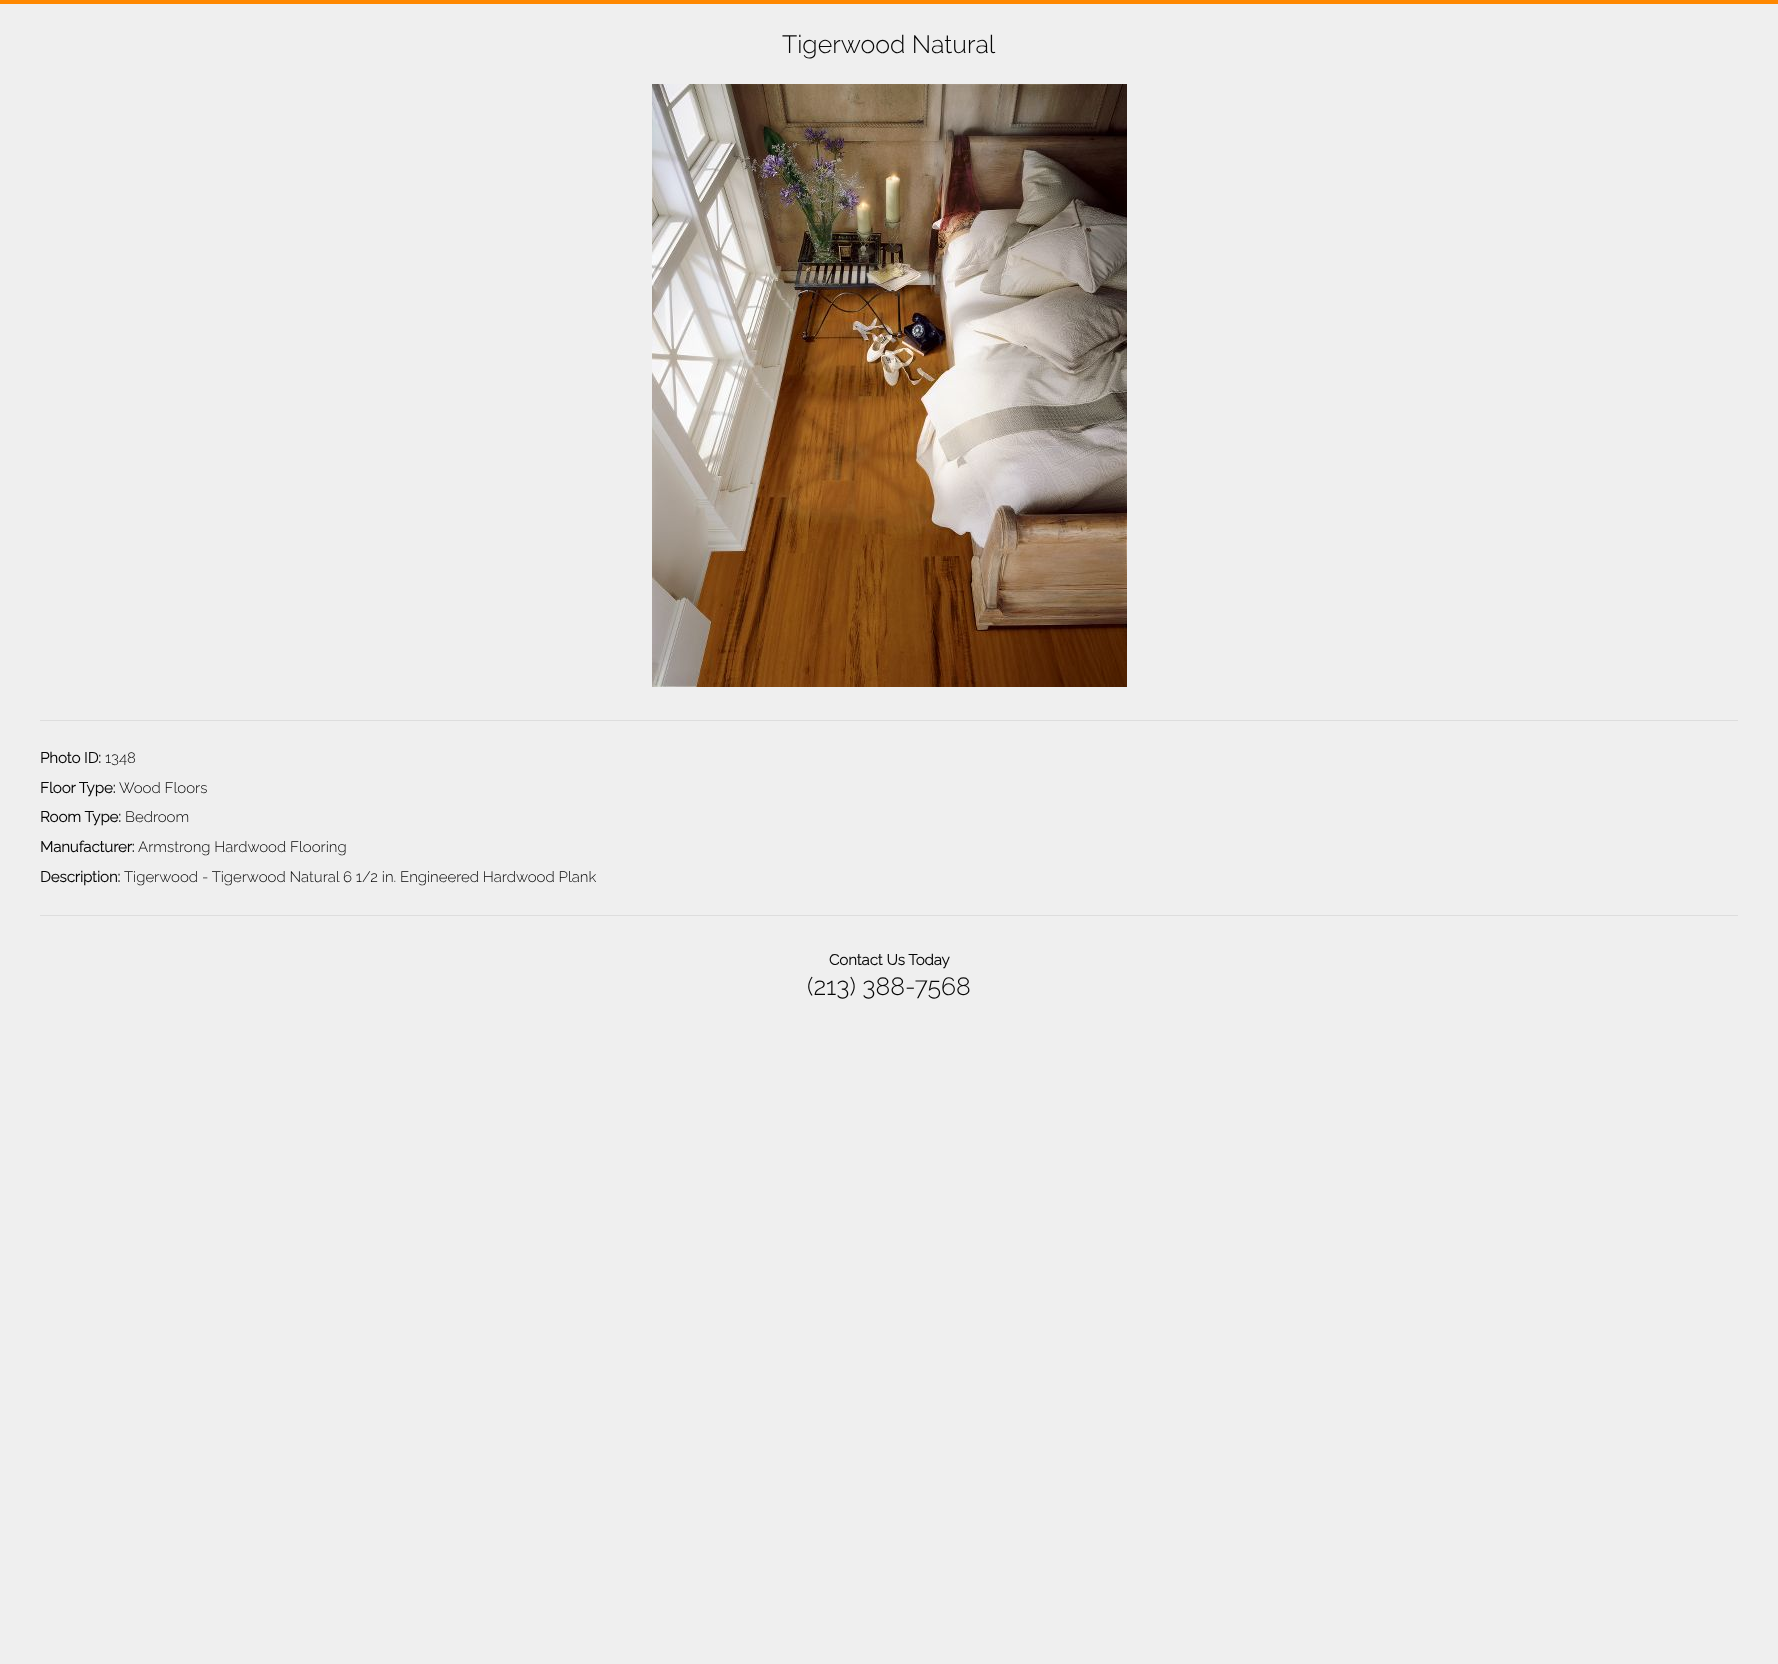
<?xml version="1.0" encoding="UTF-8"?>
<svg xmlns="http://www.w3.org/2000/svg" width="1778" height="1664">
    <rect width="100%" height="100%" fill="#EFEFEF"/>
    <rect x="0" y="0" width="1778" height="4" fill="#FF8800"/>
    <text x="782" y="53" font-family="Raleway" font-size="25" font-weight="100" fill="#060606">Tigerwood Natural</text>
    <image x="652" y="84" width="475" height="603" href="img_01.png"/>
    <rect x="40" y="720" width="1698" height="1" fill="#DDDDDD"/>
    <text x="40" y="763" font-family="Raleway" font-size="15" font-weight="700" fill="#060606">Photo ID:</text>
    <text x="105" y="763" font-family="Raleway" font-size="15" font-weight="100" fill="#060606">1348</text>
    <text x="40" y="793" font-family="Raleway" font-size="15" font-weight="700" fill="#060606">Floor Type:</text>
    <text x="119" y="793" font-family="Raleway" font-size="15" font-weight="100" fill="#060606">Wood Floors</text>
    <text x="40" y="822" font-family="Raleway" font-size="15" font-weight="700" fill="#060606">Room Type:</text>
    <text x="125" y="822" font-family="Raleway" font-size="15" font-weight="100" fill="#060606">Bedroom</text>
    <text x="40" y="852" font-family="Raleway" font-size="15" font-weight="700" fill="#060606">Manufacturer:</text>
    <text x="138" y="852" font-family="Raleway" font-size="15" font-weight="100" fill="#060606">Armstrong Hardwood Flooring</text>
    <text x="40" y="882" font-family="Raleway" font-size="15" font-weight="700" fill="#060606">Description:</text>
    <text x="124" y="882" font-family="Raleway" font-size="15" font-weight="100" fill="#060606">Tigerwood - Tigerwood Natural 6 1/2 in. Engineered Hardwood Plank</text>
    <rect x="40" y="915" width="1698" height="1" fill="#DDDDDD"/>
    <text x="829" y="965" font-family="Raleway" font-size="15" font-weight="700" fill="#060606">Contact Us Today</text>
    <text x="807" y="995" font-family="Raleway" font-size="25" font-weight="100" fill="#060606">(213) 388-7568</text>
</svg>
